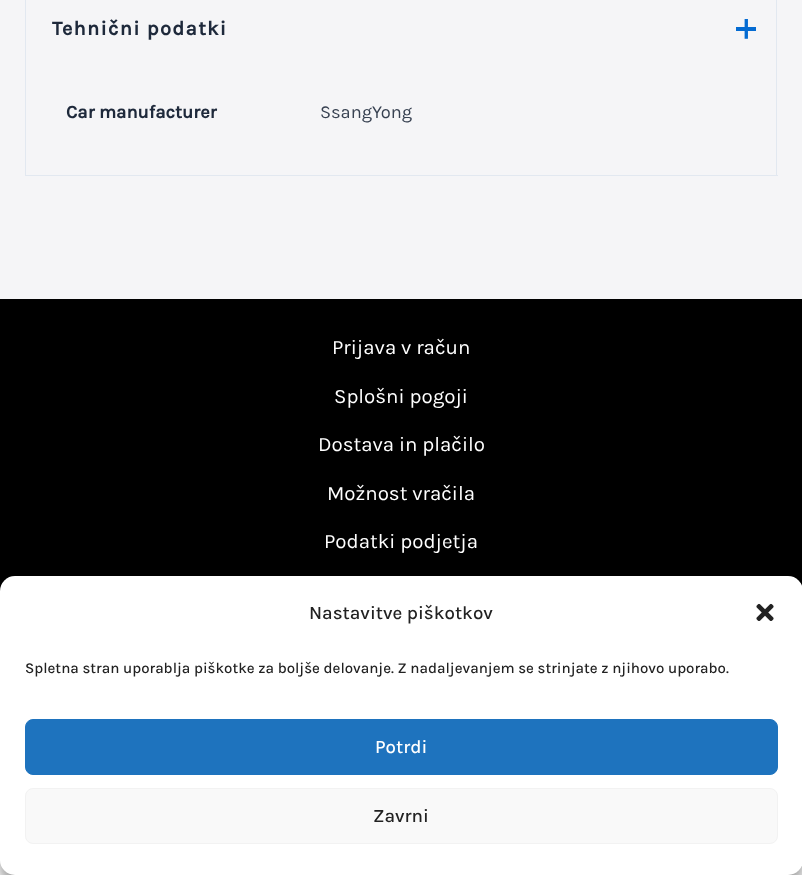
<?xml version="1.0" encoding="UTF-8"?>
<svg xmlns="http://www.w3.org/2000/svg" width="802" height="875">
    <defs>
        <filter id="blur1" x="-50%" y="-200%" width="200%" height="500%"><feGaussianBlur stdDeviation="4"/></filter>
        <filter id="blur2" x="-50%" y="-200%" width="200%" height="500%"><feGaussianBlur stdDeviation="12.5"/></filter>
    </defs>
    <rect width="100%" height="100%" fill="#FFFFFF"/>
    <rect x="0" y="0" width="802" height="299" fill="#F5F5F7"/>
    <rect x="25" y="175" width="753" height="1" fill="#E2E8F0"/>
    <text x="52" y="35" font-family="Karla" font-size="20" font-weight="700" letter-spacing="1.25" fill="#1E293B">Tehnični podatki</text>
    <image x="744" y="19" width="4" height="20" href="img_01.png"/>
    <rect x="736" y="27" width="20" height="4" fill="#046BD2"/>
    <rect x="776" y="0" width="1" height="175" fill="#E2E8F0"/>
    <rect x="25" y="0" width="1" height="175" fill="#E2E8F0"/>
    <text x="66" y="118" font-family="Karla" font-size="18.25" font-weight="700" fill="#1E293B">Car manufacturer</text>
    <text x="320" y="118" font-family="Karla" font-size="18.25" fill="#374151">SsangYong</text>
    <rect x="0" y="299" width="802" height="292" fill="#000000"/>
    <text x="332" y="354" font-family="Karla" font-size="20.5" fill="#FFFFFF">Prijava v račun</text>
    <text x="334" y="403" font-family="Karla" font-size="20.5" fill="#FFFFFF">Splošni pogoji</text>
    <text x="318" y="451" font-family="Karla" font-size="20.5" fill="#FFFFFF">Dostava in plačilo</text>
    <text x="327" y="500" font-family="Karla" font-size="20.5" fill="#FFFFFF">Možnost vračila</text>
    <text x="324" y="548" font-family="Karla" font-size="20.5" fill="#FFFFFF">Podatki podjetja</text>
    <rect x="0" y="584" width="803" height="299" rx="15" fill="#000000" fill-opacity="0.23" filter="url(#blur1)"/>
    <rect x="0" y="589" width="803" height="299" rx="15" fill="#000000" fill-opacity="0.19" filter="url(#blur2)"/>
    <rect x="0" y="576" width="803" height="299" rx="15" fill="#FFFFFF"/>
    <text x="309" y="619" font-family="Karla" font-size="18.75" font-weight="500" fill="#222222">Nastavitve piškotkov</text>
    <image x="756" y="603" width="18" height="18" href="img_02.png"/>
    <text x="25" y="673" font-family="Karla" font-size="15" font-weight="500" fill="#222222">Spletna stran uporablja piškotke za boljše delovanje. Z nadaljevanjem se strinjate z njihovo uporabo.</text>
    <rect x="25.5" y="719.5" width="752" height="55" rx="7.5" fill="#1E73BE" stroke="#1E73BE"/>
    <text x="375" y="753" font-family="Karla" font-size="18.75" font-weight="500" fill="#FFFFFF">Potrdi</text>
    <rect x="25.5" y="788.5" width="752" height="55" rx="7.5" fill="#F9F9F9" stroke="#F2F2F2"/>
    <text x="373" y="822" font-family="Karla" font-size="18.75" font-weight="500" fill="#222222">Zavrni</text>
</svg>
